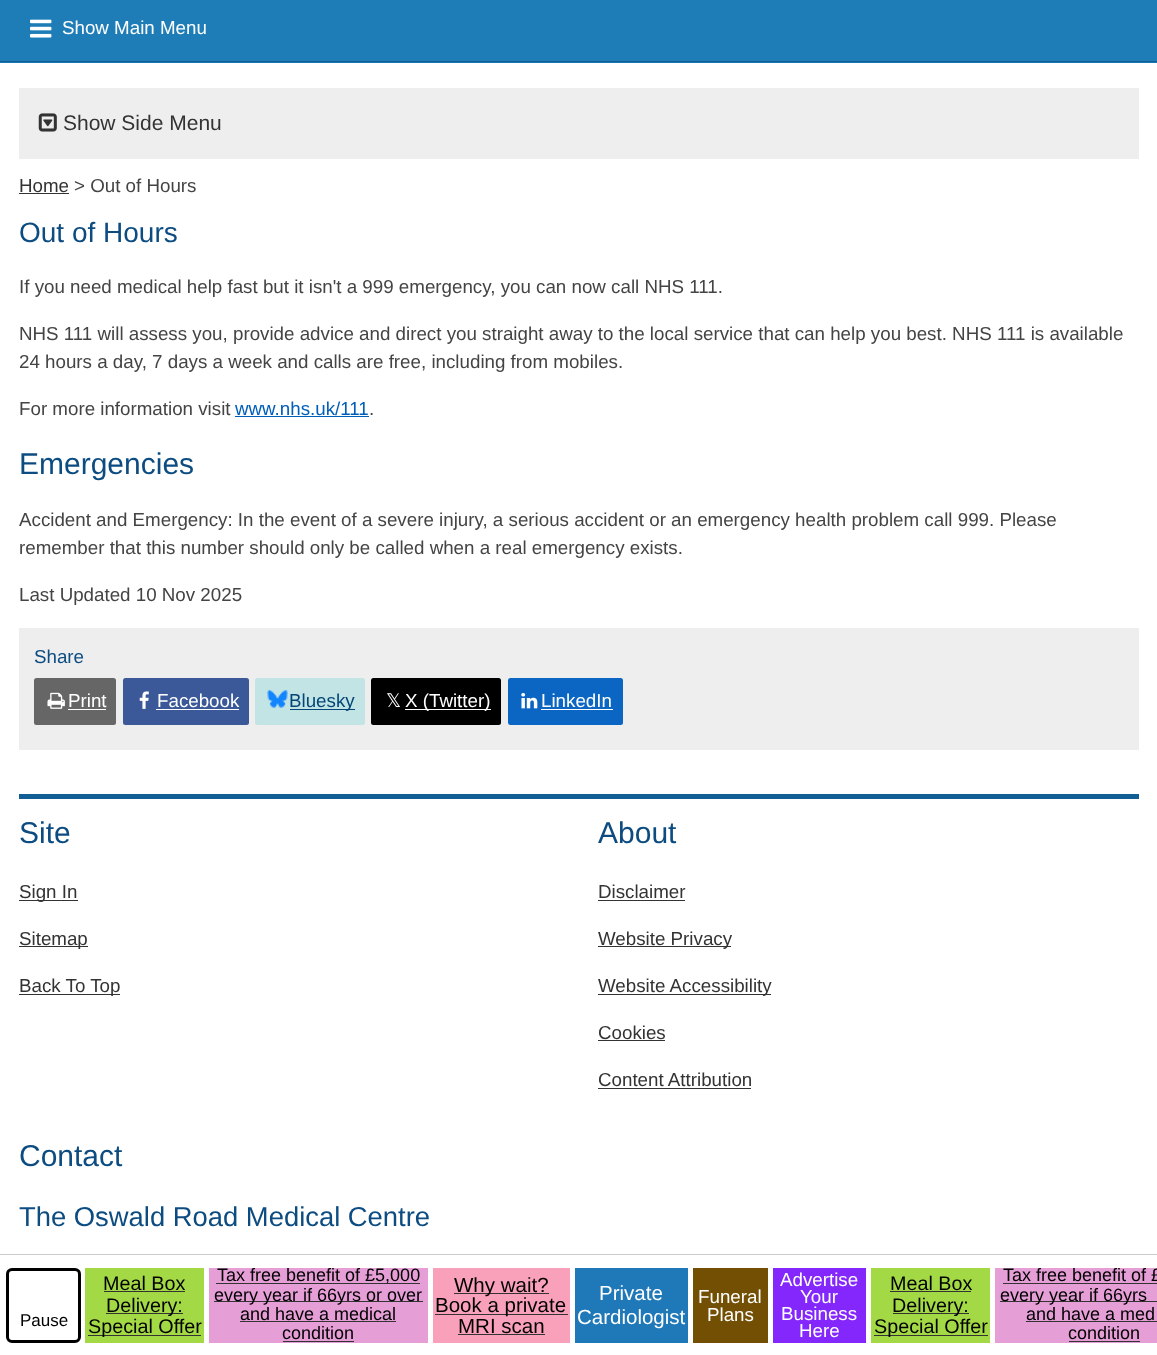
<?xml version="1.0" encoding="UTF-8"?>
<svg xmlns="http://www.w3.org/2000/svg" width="1157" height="1355">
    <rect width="100%" height="100%" fill="#FFFFFF"/>
    <rect x="0" y="62" width="1157" height="1" fill="#1A74B0"/>
    <rect x="0" y="61" width="1157" height="1" fill="#115E94"/>
    <rect x="0" y="0" width="1157" height="61" fill="#1E7DB7"/>
    <image x="30" y="19" width="22" height="19" href="img_01.png"/>
    <text x="62" y="34" font-family="Liberation Sans" font-size="18.75" fill="#FFFFFF">Show Main Menu</text>
    <rect x="19" y="88" width="1120" height="71" fill="#EEEEEE"/>
    <image x="38" y="113" width="19" height="19" href="img_02.png"/>
    <text x="63" y="130" font-family="Liberation Sans" font-size="21" fill="#333333">Show Side Menu</text>
    <text x="19" y="192" font-family="Liberation Sans" font-size="18.75" fill="#333333">Home</text>
    <rect x="19" y="193" width="50" height="1" fill="#333333"/>
    <text x="74" y="192" font-family="Liberation Sans" font-size="18.75" fill="#444444">&gt; Out of Hours</text>
    <text x="19" y="242" font-family="Liberation Sans" font-size="28" fill="#0C4C81">Out of Hours</text>
    <text x="19" y="293" font-family="Liberation Sans" font-size="18.75" fill="#444444">If you need medical help fast but it isn't a 999 emergency, you can now call NHS 111.</text>
    <text font-family="Liberation Sans" font-size="18.75" fill="#444444">
        <tspan x="19" y="340">NHS 111 will assess you, provide advice and direct you straight away to the local service that can help you best. NHS 111 is available</tspan>
        <tspan x="19" y="368">24 hours a day, 7 days a week and calls are free, including from mobiles.</tspan>
    </text>
    <text x="19" y="415" font-family="Liberation Sans" font-size="18.75" fill="#444444">For more information visit</text>
    <text x="235" y="415" font-family="Liberation Sans" font-size="18.75" fill="#005EB8">www.nhs.uk/111</text>
    <rect x="235" y="416" width="134" height="1" fill="#005EB8"/>
    <text x="369" y="415" font-family="Liberation Sans" font-size="18.75" fill="#444444">.</text>
    <text x="19" y="474" font-family="Liberation Sans" font-size="30" fill="#0C4C81">Emergencies</text>
    <text font-family="Liberation Sans" font-size="18.75" fill="#444444">
        <tspan x="19" y="526">Accident and Emergency: In the event of a severe injury, a serious accident or an emergency health problem call 999. Please</tspan>
        <tspan x="19" y="554">remember that this number should only be called when a real emergency exists.</tspan>
    </text>
    <text x="19" y="601" font-family="Liberation Sans" font-size="18.75" fill="#444444">Last Updated 10 Nov 2025</text>
    <rect x="19" y="628" width="1120" height="122" fill="#EEEEEE"/>
    <text x="34" y="663" font-family="Liberation Sans" font-size="18.75" fill="#0C4C81">Share</text>
    <rect x="34" y="678" width="82" height="47" rx="2.5" fill="#666666"/>
    <image x="47" y="692" width="18" height="17" href="img_03.png"/>
    <text x="68" y="707" font-family="Liberation Sans" font-size="18.75" fill="#FFFFFF">Print</text>
    <rect x="68" y="709" width="38" height="1" fill="#FFFFFF"/>
    <rect x="123" y="678" width="126" height="47" rx="2.5" fill="#3B5998"/>
    <image x="139" y="691" width="10" height="18" href="img_04.png"/>
    <text x="157" y="707" font-family="Liberation Sans" font-size="18.75" fill="#FFFFFF">Facebook</text>
    <rect x="156" y="709" width="83" height="1" fill="#FFFFFF"/>
    <rect x="255" y="678" width="110" height="47" rx="2.5" fill="#C2E4E5"/>
    <image x="267" y="690" width="21" height="18" href="img_05.png"/>
    <rect x="290" y="709" width="65" height="1" fill="#044777"/>
    <text x="289" y="707" font-family="Liberation Sans" font-size="18.75" fill="#044777">Bluesky</text>
    <rect x="371" y="678" width="130" height="47" rx="2.5" fill="#000000"/>
    <text x="386" y="707" font-family="DejaVu Sans" font-size="18.75" fill="#FFFFFF">𝕏</text>
    <rect x="405" y="709" width="86" height="1" fill="#FFFFFF"/>
    <text x="405" y="707" font-family="Liberation Sans" font-size="18.75" fill="#FFFFFF">X (Twitter)</text>
    <rect x="508" y="678" width="115" height="47" rx="2.5" fill="#0A66C2"/>
    <image x="521" y="693" width="17" height="16" href="img_06.png"/>
    <text x="541" y="707" font-family="Liberation Sans" font-size="18.75" fill="#FFFFFF">LinkedIn</text>
    <rect x="541" y="709" width="72" height="1" fill="#FFFFFF"/>
    <rect x="19" y="794" width="1120" height="5" fill="#115E94"/>
    <text x="19" y="843" font-family="Liberation Sans" font-size="30" fill="#0C4C81">Site</text>
    <rect x="19" y="900" width="59" height="1" fill="#333333"/>
    <text x="19" y="898" font-family="Liberation Sans" font-size="18.75" fill="#333333">Sign In</text>
    <rect x="19" y="946" width="69" height="1" fill="#333333"/>
    <text x="19" y="945" font-family="Liberation Sans" font-size="18.75" fill="#333333">Sitemap</text>
    <rect x="19" y="994" width="101" height="1" fill="#333333"/>
    <text x="19" y="992" font-family="Liberation Sans" font-size="18.75" fill="#333333">Back To Top</text>
    <text x="598" y="843" font-family="Liberation Sans" font-size="30" fill="#0C4C81">About</text>
    <text x="598" y="898" font-family="Liberation Sans" font-size="18.75" fill="#333333">Disclaimer</text>
    <rect x="598" y="900" width="87" height="1" fill="#333333"/>
    <rect x="598" y="946" width="133" height="1" fill="#333333"/>
    <text x="598" y="945" font-family="Liberation Sans" font-size="18.75" fill="#333333">Website Privacy</text>
    <rect x="598" y="994" width="173" height="1" fill="#333333"/>
    <text x="598" y="992" font-family="Liberation Sans" font-size="18.75" fill="#333333">Website Accessibility</text>
    <text x="598" y="1039" font-family="Liberation Sans" font-size="18.75" fill="#333333">Cookies</text>
    <rect x="598" y="1040" width="67" height="1" fill="#333333"/>
    <text x="598" y="1086" font-family="Liberation Sans" font-size="18.75" fill="#333333">Content Attribution</text>
    <rect x="598" y="1088" width="153" height="1" fill="#333333"/>
    <text x="19" y="1166" font-family="Liberation Sans" font-size="30" fill="#0C4C81">Contact</text>
    <text x="19" y="1226" font-family="Liberation Sans" font-size="27.4" fill="#0C4C81">The Oswald Road Medical Centre</text>
    <rect x="7.5" y="1269.5" width="72" height="72" rx="4.5" fill="none" stroke="#000000" stroke-width="3"/>
    <text x="20" y="1326" font-family="Liberation Sans" font-size="17" fill="#000000">Pause</text>
    <rect x="0" y="1254" width="1157" height="1" fill="#CCCCCC"/>
    <rect x="85" y="1268" width="119" height="75" fill="#A4D946"/>
    <text x="103" y="1290" font-family="Liberation Sans" font-size="19.75" fill="#000000">Meal Box</text>
    <rect x="104" y="1291" width="81" height="1" fill="#333333"/>
    <rect x="106" y="1313" width="77" height="1" fill="#333333"/>
    <text x="106" y="1312" font-family="Liberation Sans" font-size="19.75" fill="#000000">Delivery:</text>
    <rect x="88" y="1335" width="113" height="1" fill="#333333"/>
    <text x="88" y="1333" font-family="Liberation Sans" font-size="19.75" fill="#000000">Special Offer</text>
    <rect x="209" y="1268" width="219" height="75" fill="#E69ED7"/>
    <rect x="216" y="1283" width="204" height="1" fill="#333333"/>
    <text x="217" y="1281" font-family="Liberation Sans" font-size="18" fill="#000000">Tax free benefit of £5,000</text>
    <rect x="214" y="1301" width="209" height="1" fill="#333333"/>
    <text x="214" y="1301" font-family="Liberation Sans" font-size="18" fill="#000000">every year if 66yrs or over</text>
    <text x="240" y="1320" font-family="Liberation Sans" font-size="18" fill="#000000">and have a medical</text>
    <rect x="240" y="1321" width="156" height="1" fill="#333333"/>
    <text x="282" y="1339" font-family="Liberation Sans" font-size="18" fill="#000000">condition</text>
    <rect x="283" y="1341" width="71" height="1" fill="#333333"/>
    <rect x="433" y="1268" width="137" height="75" fill="#F9A1BB"/>
    <rect x="454" y="1293" width="95" height="1" fill="#333333"/>
    <text x="454" y="1292" font-family="Liberation Sans" font-size="20.5" fill="#000000">Why wait?</text>
    <rect x="435" y="1314" width="133" height="1" fill="#333333"/>
    <text x="435" y="1312" font-family="Liberation Sans" font-size="20.5" fill="#000000">Book a private</text>
    <text x="458" y="1333" font-family="Liberation Sans" font-size="20.5" fill="#000000">MRI scan</text>
    <rect x="458" y="1334" width="87" height="1" fill="#333333"/>
    <rect x="575" y="1268" width="113" height="75" fill="#1F78B7"/>
    <text x="599" y="1300" font-family="Liberation Sans" font-size="20.5" fill="#FFFFFF">Private</text>
    <text x="577" y="1324" font-family="Liberation Sans" font-size="20.5" fill="#FFFFFF">Cardiologist</text>
    <rect x="693" y="1268" width="75" height="75" fill="#724F03"/>
    <text x="698" y="1303" font-family="Liberation Sans" font-size="18.75" fill="#FFFFFF">Funeral</text>
    <text x="707" y="1321" font-family="Liberation Sans" font-size="18.75" fill="#FFFFFF">Plans</text>
    <rect x="773" y="1268" width="93" height="75" fill="#8327FC"/>
    <text x="780" y="1286" font-family="Liberation Sans" font-size="18.75" fill="#FFFFFF">Advertise</text>
    <text x="800" y="1303" font-family="Liberation Sans" font-size="18.75" fill="#FFFFFF">Your</text>
    <text x="781" y="1320" font-family="Liberation Sans" font-size="18.75" fill="#FFFFFF">Business</text>
    <text x="799" y="1337" font-family="Liberation Sans" font-size="18.75" fill="#FFFFFF">Here</text>
    <rect x="871" y="1268" width="119" height="75" fill="#A4D946"/>
    <text x="890" y="1290" font-family="Liberation Sans" font-size="19.75" fill="#000000">Meal Box</text>
    <rect x="890" y="1291" width="81" height="1" fill="#333333"/>
    <rect x="893" y="1313" width="76" height="1" fill="#333333"/>
    <text x="892" y="1312" font-family="Liberation Sans" font-size="19.75" fill="#000000">Delivery:</text>
    <rect x="874" y="1335" width="114" height="1" fill="#333333"/>
    <text x="874" y="1333" font-family="Liberation Sans" font-size="19.75" fill="#000000">Special Offer</text>
    <rect x="995" y="1268" width="162" height="75" fill="#E69ED7"/>
    <text x="1003" y="1281" font-family="Liberation Sans" font-size="18" fill="#000000">Tax free benefit of £</text>
    <rect x="1003" y="1283" width="154" height="1" fill="#333333"/>
    <rect x="1000" y="1301" width="157" height="1" fill="#333333"/>
    <text x="1000" y="1301" font-family="Liberation Sans" font-size="18" fill="#000000">every year if 66yrs</text>
    <text x="1026" y="1320" font-family="Liberation Sans" font-size="18" fill="#000000">and have a med</text>
    <rect x="1026" y="1321" width="131" height="1" fill="#333333"/>
    <text x="1068" y="1339" font-family="Liberation Sans" font-size="18" fill="#000000">condition</text>
    <rect x="1069" y="1341" width="71" height="1" fill="#333333"/>
</svg>
